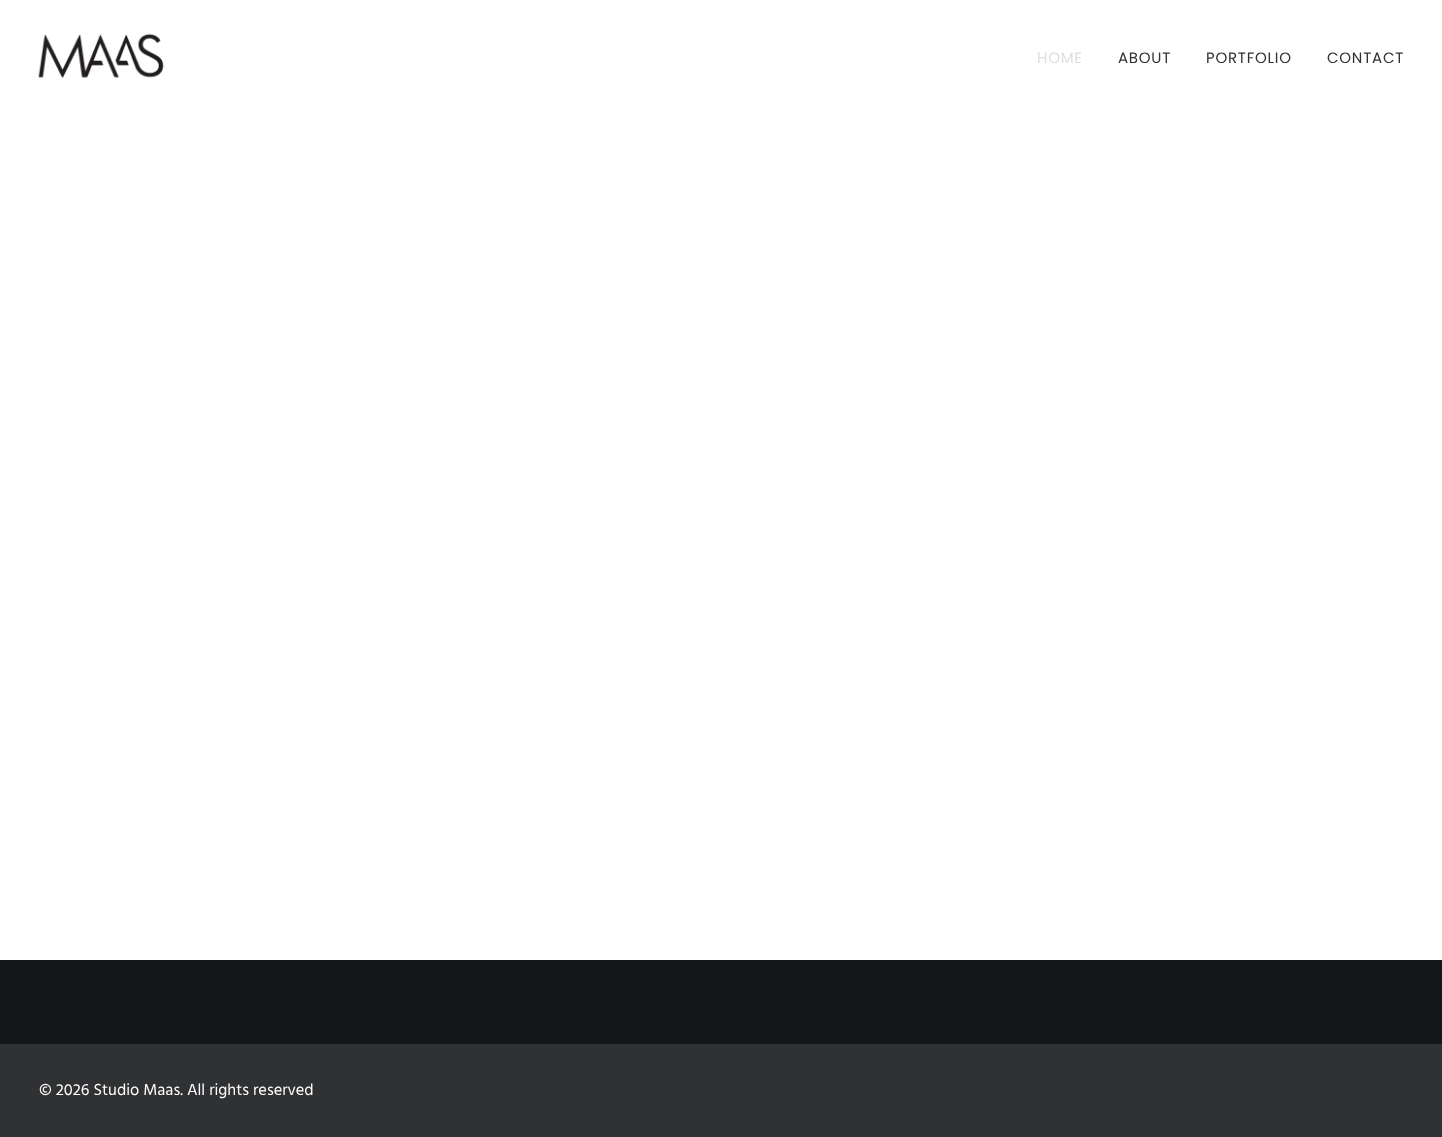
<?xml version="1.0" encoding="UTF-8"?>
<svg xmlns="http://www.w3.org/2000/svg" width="1442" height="1137">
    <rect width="100%" height="100%" fill="#FFFFFF"/>
    <image x="38" y="33" width="126" height="45" href="img_01.png"/>
    <text x="1037" y="63" font-family="Poppins" font-size="15" letter-spacing="0.75" fill="#DDDDDD">HOME</text>
    <text x="1118" y="63" font-family="Poppins" font-size="15" letter-spacing="0.75" fill="#303133">ABOUT</text>
    <text x="1206" y="63" font-family="Poppins" font-size="15" letter-spacing="0.75" fill="#303133">PORTFOLIO</text>
    <text x="1327" y="63" font-family="Poppins" font-size="15" letter-spacing="0.75" fill="#303133">CONTACT</text>
    <rect x="0" y="960" width="1442" height="84" fill="#141618"/>
    <rect x="0" y="1044" width="1442" height="93" fill="#303133"/>
    <text x="39" y="1095" font-family="Hind" font-size="16.4" fill="#FFFFFF">© 2026 Studio Maas. All rights reserved</text>
</svg>
